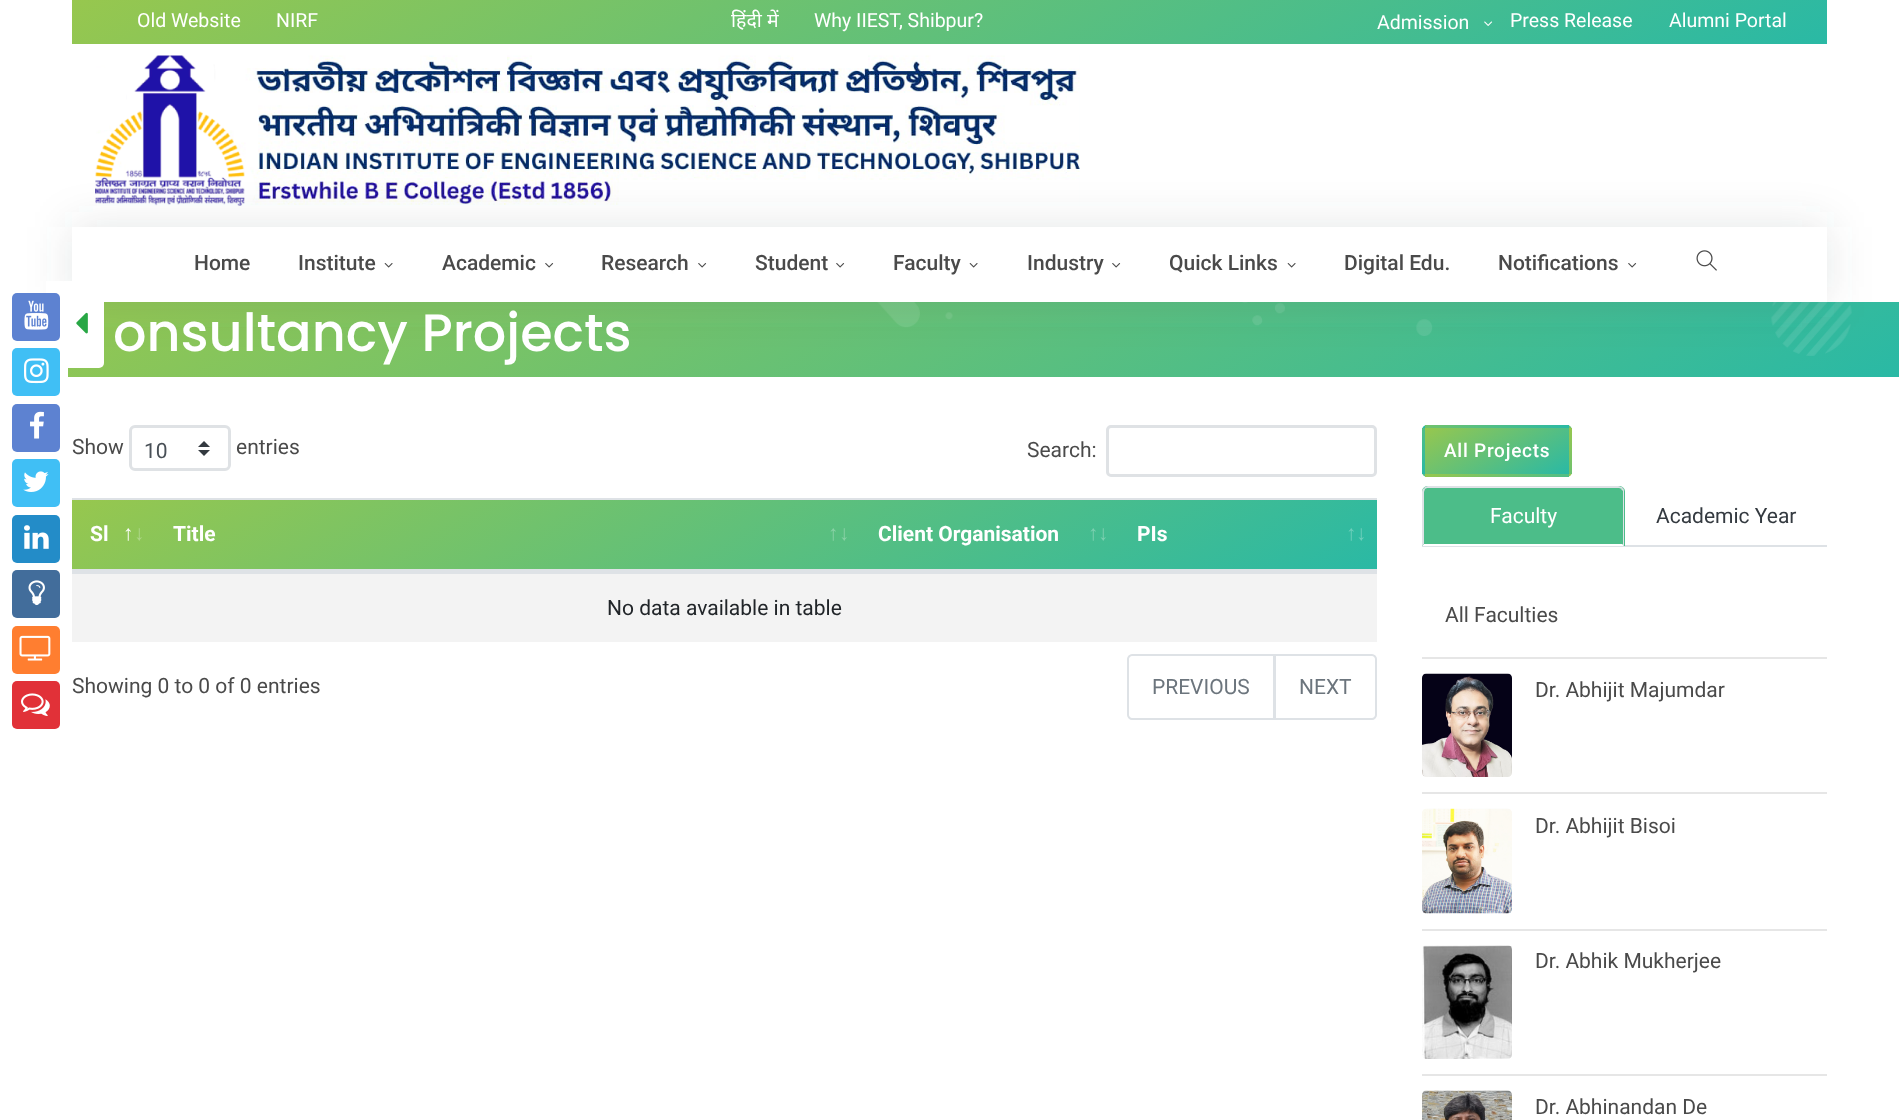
<?xml version="1.0" encoding="UTF-8"?>
<svg xmlns="http://www.w3.org/2000/svg" width="1899" height="1120">
    <defs>
        <linearGradient id="g1" gradientUnits="userSpaceOnUse" x1="721" y1="-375" x2="1178" y2="418"><stop offset="0" stop-color="#97C74E"/><stop offset="1" stop-color="#2AB9A5"/></linearGradient>
        <linearGradient id="g2" gradientUnits="userSpaceOnUse" x1="696" y1="-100" x2="1203" y2="778"><stop offset="0" stop-color="#97C74E"/><stop offset="1" stop-color="#2AB9A5"/></linearGradient>
        <filter id="blur1" x="-50%" y="-200%" width="200%" height="500%"><feGaussianBlur stdDeviation="22.5"/></filter>
        <linearGradient id="g3" gradientUnits="userSpaceOnUse" x1="545" y1="225" x2="904" y2="845"><stop offset="0" stop-color="#97C74E"/><stop offset="1" stop-color="#2AB9A5"/></linearGradient>
        <clipPath id="clip1"><rect x="1422" y="425" width="150" height="52" rx="5"/></clipPath>
        <linearGradient id="g4" gradientUnits="userSpaceOnUse" x1="1325" y1="356" x2="1381" y2="453"><stop offset="0" stop-color="#97C74E"/><stop offset="1" stop-color="#2AB9A5"/></linearGradient>
        <linearGradient id="g5" gradientUnits="userSpaceOnUse" x1="1469" y1="356" x2="1525" y2="453"><stop offset="0" stop-color="#97C74E"/><stop offset="1" stop-color="#2AB9A5"/></linearGradient>
        <linearGradient id="g6" gradientUnits="userSpaceOnUse" x1="1613" y1="356" x2="1669" y2="453"><stop offset="0" stop-color="#97C74E"/><stop offset="1" stop-color="#2AB9A5"/></linearGradient>
        <linearGradient id="g7" gradientUnits="userSpaceOnUse" x1="1325" y1="402" x2="1381" y2="499"><stop offset="0" stop-color="#97C74E"/><stop offset="1" stop-color="#2AB9A5"/></linearGradient>
        <linearGradient id="g8" gradientUnits="userSpaceOnUse" x1="1469" y1="402" x2="1525" y2="499"><stop offset="0" stop-color="#97C74E"/><stop offset="1" stop-color="#2AB9A5"/></linearGradient>
        <linearGradient id="g9" gradientUnits="userSpaceOnUse" x1="1613" y1="402" x2="1669" y2="499"><stop offset="0" stop-color="#97C74E"/><stop offset="1" stop-color="#2AB9A5"/></linearGradient>
        <linearGradient id="g10" gradientUnits="userSpaceOnUse" x1="1325" y1="449" x2="1381" y2="546"><stop offset="0" stop-color="#97C74E"/><stop offset="1" stop-color="#2AB9A5"/></linearGradient>
        <linearGradient id="g11" gradientUnits="userSpaceOnUse" x1="1469" y1="449" x2="1525" y2="546"><stop offset="0" stop-color="#97C74E"/><stop offset="1" stop-color="#2AB9A5"/></linearGradient>
        <linearGradient id="g12" gradientUnits="userSpaceOnUse" x1="1613" y1="449" x2="1669" y2="546"><stop offset="0" stop-color="#97C74E"/><stop offset="1" stop-color="#2AB9A5"/></linearGradient>
    </defs>
    <rect width="100%" height="100%" fill="#FFFFFF"/>
    <rect x="72" y="0" width="1755" height="44" fill="url(#g1)"/>
    <text x="137" y="27" font-family="Roboto" font-size="19.5" fill="#FFFFFF">Old Website</text>
    <text x="276" y="27" font-family="Roboto" font-size="19.5" fill="#FFFFFF">NIRF</text>
    <text x="731" y="27" font-family="Noto Sans" font-size="19.5" fill="#FFFFFF">हिंदी में</text>
    <text x="814" y="27" font-family="Roboto" font-size="19.5" fill="#FFFFFF">Why IIEST, Shibpur?</text>
    <text x="1377" y="29" font-family="Roboto" font-size="19.5" fill="#FFFFFF">Admission</text>
    <image x="1484" y="21" width="9" height="5" href="img_01.png"/>
    <text x="1510" y="27" font-family="Roboto" font-size="19.5" fill="#FFFFFF">Press Release</text>
    <text x="1669" y="27" font-family="Roboto" font-size="19.5" fill="#FFFFFF">Alumni Portal</text>
    <image x="95" y="55" width="985" height="151" href="img_02.png"/>
    <rect x="68" y="302" width="1831" height="75" fill="url(#g2)"/>
    <image x="877" y="302" width="975" height="54" href="img_15.png"/>
    <rect x="72" y="227" width="1755" height="75" fill="#53585D" fill-opacity="0.15" filter="url(#blur1)"/>
    <rect x="72" y="227" width="1755" height="75" fill="#FFFFFF"/>
    <text x="194" y="270" font-family="Roboto" font-size="21" font-weight="500" fill="#4A4A4A">Home</text>
    <text x="298" y="270" font-family="Roboto" font-size="21" font-weight="500" fill="#4A4A4A">Institute</text>
    <image x="384" y="263" width="9" height="5" href="img_03.png"/>
    <text x="442" y="270" font-family="Roboto" font-size="21" font-weight="500" fill="#4A4A4A">Academic</text>
    <image x="545" y="263" width="9" height="5" href="img_04.png"/>
    <text x="601" y="270" font-family="Roboto" font-size="21" font-weight="500" fill="#4A4A4A">Research</text>
    <image x="698" y="263" width="9" height="5" href="img_04.png"/>
    <text x="755" y="270" font-family="Roboto" font-size="21" font-weight="500" fill="#4A4A4A">Student</text>
    <image x="836" y="263" width="9" height="5" href="img_04.png"/>
    <text x="893" y="270" font-family="Roboto" font-size="21" font-weight="500" fill="#4A4A4A">Faculty</text>
    <image x="969" y="263" width="9" height="5" href="img_03.png"/>
    <text x="1027" y="270" font-family="Roboto" font-size="21" font-weight="500" fill="#4A4A4A">Industry</text>
    <image x="1112" y="263" width="9" height="5" href="img_04.png"/>
    <text x="1169" y="270" font-family="Roboto" font-size="21" font-weight="500" fill="#4A4A4A">Quick Links</text>
    <image x="1287" y="263" width="9" height="5" href="img_03.png"/>
    <text x="1344" y="270" font-family="Roboto" font-size="21" font-weight="500" fill="#4A4A4A">Digital Edu.</text>
    <text x="1498" y="270" font-family="Roboto" font-size="21" font-weight="500" fill="#4A4A4A">Notifications</text>
    <image x="1628" y="263" width="9" height="5" href="img_04.png"/>
    <image x="1696" y="250" width="21" height="21" href="img_05.png"/>
    <rect x="60" y="281" width="44" height="87" rx="5" fill="#FFFFFF"/>
    <rect x="46" y="281" width="17" height="29" fill="#FFFFFF"/>
    <rect x="12" y="293" width="48" height="48" rx="5" fill="#5D82D1"/>
    <image x="24" y="300" width="25" height="30" href="img_06.png"/>
    <rect x="12" y="348" width="48" height="48" rx="5" fill="#40BFF5"/>
    <image x="24" y="358" width="25" height="26" href="img_07.png"/>
    <rect x="12" y="404" width="48" height="48" rx="5" fill="#5D82D1"/>
    <image x="30" y="411" width="14" height="28" href="img_08.png"/>
    <rect x="12" y="459" width="48" height="48" rx="5" fill="#40BFF5"/>
    <image x="23" y="471" width="26" height="21" href="img_09.png"/>
    <rect x="12" y="515" width="48" height="48" rx="5" fill="#238CC8"/>
    <image x="24" y="525" width="25" height="24" href="img_10.png"/>
    <rect x="12" y="570" width="48" height="48" rx="5" fill="#426D9B"/>
    <image x="28" y="580" width="17" height="26" href="img_11.png"/>
    <rect x="12" y="626" width="48" height="48" rx="5" fill="#FF7E30"/>
    <image x="19" y="635" width="32" height="26" href="img_12.png"/>
    <rect x="12" y="681" width="48" height="48" rx="5" fill="#E13138"/>
    <image x="21" y="693" width="29" height="23" href="img_13.png"/>
    <image x="76" y="312" width="12" height="22" href="img_14.png"/>
    <text x="113" y="351" font-family="Poppins" font-size="52.5" font-weight="500" fill="#FFFFFF">onsultancy Projects</text>
    <text x="72" y="454" font-family="Roboto" font-size="21" fill="#4A4A4A">Show</text>
    <image x="198" y="441" width="12" height="15" href="img_16.png"/>
    <rect x="130.5" y="426.5" width="99" height="43" rx="4.5" fill="none" stroke="#DFE2E5" stroke-width="3"/>
    <text x="144" y="458" font-family="Roboto" font-size="21" fill="#495057">10</text>
    <text x="236" y="454" font-family="Roboto" font-size="21" fill="#4A4A4A">entries</text>
    <text x="1027" y="457" font-family="Roboto" font-size="21" fill="#4A4A4A">Search:</text>
    <rect x="1107.5" y="426.5" width="268" height="49" rx="3.5" fill="none" stroke="#DFE2E5" stroke-width="3"/>
    <rect x="72" y="500" width="1305" height="69" fill="url(#g3)"/>
    <rect x="72" y="498" width="1305" height="2" fill="#DEE2E6"/>
    <rect x="72" y="569" width="1305" height="3" fill="#DEE2E6"/>
    <text x="90" y="541" font-family="Roboto" font-size="21" font-weight="700" fill="#FFFFFF">Sl</text>
    <text x="123" y="540" font-family="Liberation Sans" font-size="21" font-weight="700" fill="#FFFFFF">↑</text>
    <text x="134" y="540" font-family="Liberation Sans" font-size="21" font-weight="700" fill="#AFD789">↓</text>
    <text x="173" y="541" font-family="Roboto" font-size="21" font-weight="700" fill="#FFFFFF">Title</text>
    <text x="828" y="540" font-family="Liberation Sans" font-size="21" font-weight="700" fill="#8AD2A6">↑</text>
    <text x="839" y="540" font-family="Liberation Sans" font-size="21" font-weight="700" fill="#8AD2A6">↓</text>
    <text x="878" y="541" font-family="Roboto" font-size="21" font-weight="700" fill="#FFFFFF">Client Organisation</text>
    <text x="1088" y="540" font-family="Liberation Sans" font-size="21" font-weight="700" fill="#7DD0B1">↑</text>
    <text x="1098" y="540" font-family="Liberation Sans" font-size="21" font-weight="700" fill="#7DD0B1">↓</text>
    <text x="1137" y="541" font-family="Roboto" font-size="21" font-weight="700" fill="#FFFFFF">PIs</text>
    <text x="1346" y="540" font-family="Liberation Sans" font-size="21" font-weight="700" fill="#6FCFBC">↑</text>
    <text x="1356" y="540" font-family="Liberation Sans" font-size="21" font-weight="700" fill="#6FCFBC">↓</text>
    <rect x="72" y="574" width="1305" height="68" fill="#F3F3F3"/>
    <rect x="72" y="572" width="1305" height="2" fill="#DEE2E6"/>
    <text x="607" y="615" font-family="Roboto" font-size="21" fill="#212529">No data available in table</text>
    <text x="72" y="693" font-family="Roboto" font-size="21" fill="#4A4A4A">Showing 0 to 0 of 0 entries</text>
    <path d="M 1132 655 H 1274 V 719 H 1132 C 1130 719 1128 717 1128 715 V 659 C 1128 657 1130 655 1132 655 Z" fill="none" stroke="#DEE2E6" stroke-width="2"/>
    <text x="1152" y="694" font-family="Roboto" font-size="21" fill="#6C757D">PREVIOUS</text>
    <path d="M 1275 655 H 1372 C 1374 655 1376 657 1376 659 V 715 C 1376 717 1374 719 1372 719 H 1275 Z" fill="#FFFFFF" stroke="#DEE2E6" stroke-width="2"/>
    <text x="1299" y="694" font-family="Roboto" font-size="21" fill="#6C757D">NEXT</text>
    <g clip-path="url(#clip1)">
        <rect x="1422" y="425" width="3" height="3" fill="url(#g4)"/>
    </g>
    <rect x="1425" y="425" width="144" height="3" fill="url(#g5)"/>
    <g clip-path="url(#clip1)">
        <rect x="1569" y="425" width="3" height="3" fill="url(#g6)"/>
    </g>
    <rect x="1422" y="428" width="3" height="46" fill="url(#g7)"/>
    <rect x="1425" y="428" width="144" height="46" fill="url(#g8)"/>
    <rect x="1569" y="428" width="3" height="46" fill="url(#g9)"/>
    <g clip-path="url(#clip1)">
        <rect x="1422" y="474" width="3" height="3" fill="url(#g10)"/>
    </g>
    <rect x="1425" y="474" width="144" height="3" fill="url(#g11)"/>
    <g clip-path="url(#clip1)">
        <rect x="1569" y="474" width="3" height="3" fill="url(#g12)"/>
    </g>
    <text x="1444" y="457" font-family="Roboto" font-size="19" font-weight="500" letter-spacing="0.75" fill="#FFFFFF">All Projects</text>
    <rect x="1422" y="545" width="405" height="2" fill="#DEE2E6"/>
    <path d="M 1428 486 H 1619 C 1622.5 486 1625 488.5 1625 492 V 546 H 1422 V 492 C 1422 488.5 1424.5 486 1428 486 Z" fill="#4CBD89"/>
    <path d="M 1428 486 C 1426 486 1425 487 1424 488 L 1425 489 C 1426 488 1427 488 1428 488 H 1618 C 1619 488 1621 488 1621 489 L 1623 488 C 1622 487 1620 486 1618 486 Z" fill="#DEE2E6"/>
    <path d="M 1623 488 C 1624 489 1624 491 1624 492 V 546 L 1622 544 H 1623 V 491 L 1621 489 Z" fill="#DEE2E6"/>
    <path d="M 1624 546 L 1622 544 H 1424 L 1422 546 Z" fill="#FFFFFF"/>
    <path d="M 1422 546 L 1424 544 V 492 L 1425 489 L 1424 488 C 1423 489 1422 490 1422 492 Z" fill="#DEE2E6"/>
    <text x="1490" y="523" font-family="Roboto" font-size="21" fill="#FFFFFF">Faculty</text>
    <text x="1656" y="523" font-family="Roboto" font-size="21" fill="#343A40">Academic Year</text>
    <rect x="1422" y="657" width="405" height="2" fill="#E6E6E6"/>
    <text x="1445" y="622" font-family="Roboto" font-size="21" fill="#4A4A4A">All Faculties</text>
    <rect x="1422" y="792" width="405" height="2" fill="#E6E6E6"/>
    <image x="1422" y="673" width="90" height="104" href="img_17.png"/>
    <text x="1535" y="697" font-family="Roboto" font-size="21" fill="#4A4A4A">Dr. Abhijit Majumdar</text>
    <rect x="1422" y="929" width="405" height="2" fill="#E6E6E6"/>
    <image x="1422" y="808" width="90" height="106" href="img_18.png"/>
    <text x="1535" y="833" font-family="Roboto" font-size="21" fill="#4A4A4A">Dr. Abhijit Bisoi</text>
    <rect x="1422" y="1074" width="405" height="2" fill="#E6E6E6"/>
    <image x="1422" y="945" width="90" height="114" href="img_19.png"/>
    <text x="1535" y="968" font-family="Roboto" font-size="21" fill="#4A4A4A">Dr. Abhik Mukherjee</text>
    <image x="1422" y="1090" width="90" height="30" href="img_20.png"/>
    <text x="1535" y="1114" font-family="Roboto" font-size="21" fill="#4A4A4A">Dr. Abhinandan De</text>
</svg>
